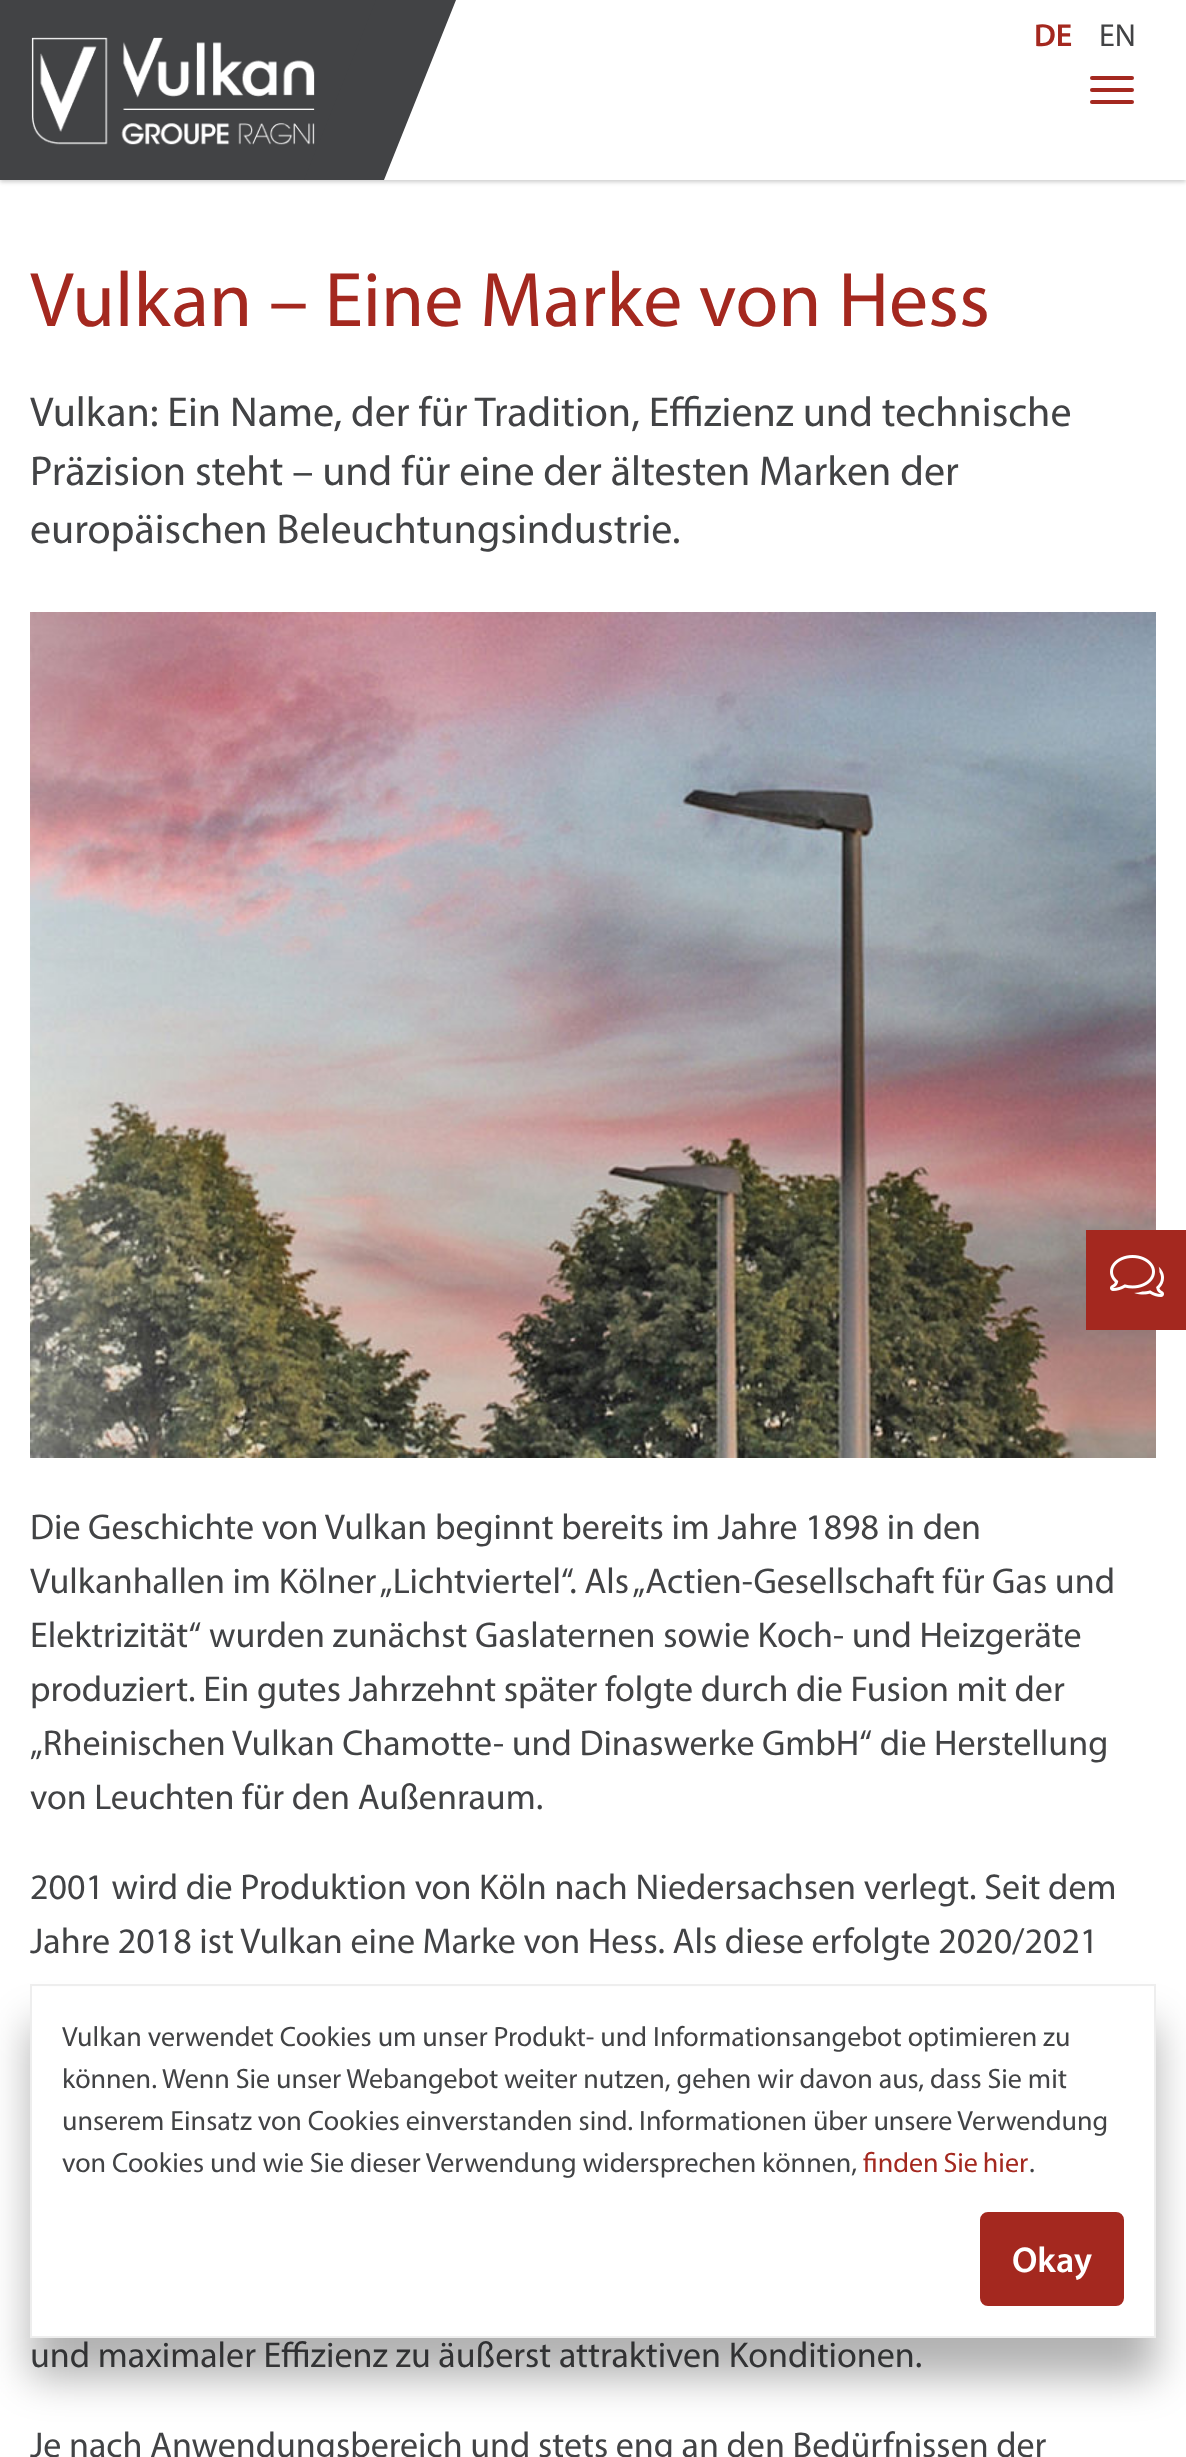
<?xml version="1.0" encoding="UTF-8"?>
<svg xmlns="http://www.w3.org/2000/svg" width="1186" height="2457">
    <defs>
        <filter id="blur1" x="-50%" y="-200%" width="200%" height="500%"><feGaussianBlur stdDeviation="2"/></filter>
        <filter id="blur2" x="-50%" y="-200%" width="200%" height="500%"><feGaussianBlur stdDeviation="20"/></filter>
    </defs>
    <rect width="100%" height="100%" fill="#FFFFFF"/>
    <rect x="0" y="2" width="1186" height="180" fill="#000000" fill-opacity="0.2" filter="url(#blur1)"/>
    <rect x="384" y="0" width="802" height="180" fill="#FFFFFF"/>
    <rect x="0" y="0" width="376" height="180" fill="#424345"/>
    <image x="31" y="37" width="284" height="108" href="img_01.png"/>
    <path d="M 376 0 H 456 L 384 180 H 304 Z" fill="#424345"/>
    <rect x="1090" y="76" width="44" height="4" rx="2" fill="#A4281F"/>
    <rect x="1090" y="88" width="44" height="4" rx="2" fill="#A4281F"/>
    <rect x="1090" y="100" width="44" height="4" rx="2" fill="#A4281F"/>
    <text x="1034" y="46" font-family="Myriad" font-size="32" font-weight="600" fill="#A4281F">DE</text>
    <text x="1099" y="46" font-family="Myriad" font-size="32" fill="#424345">EN</text>
    <text x="30" y="326" font-family="Myriad" font-size="78" fill="#A4281F">Vulkan – Eine Marke von Hess</text>
    <text font-family="Myriad" font-size="42" fill="#424345">
        <tspan x="30" y="426">Vulkan: Ein Name, der für Tradition, Effizienz und technische</tspan>
        <tspan x="30" y="485">Präzision steht – und für eine der ältesten Marken der</tspan>
        <tspan x="30" y="543">europäischen Beleuchtungsindustrie.</tspan>
    </text>
    <image x="30" y="612" width="1126" height="846" href="img_02.png"/>
    <text font-family="Myriad" font-size="36" fill="#424345">
        <tspan x="30" y="1539">Die Geschichte von Vulkan beginnt bereits im Jahre 1898 in den</tspan>
        <tspan x="30" y="1593">Vulkanhallen im Kölner „Lichtviertel“. Als „Actien-Gesellschaft für Gas und</tspan>
        <tspan x="30" y="1647">Elektrizität“ wurden zunächst Gaslaternen sowie Koch- und Heizgeräte</tspan>
        <tspan x="30" y="1701">produziert. Ein gutes Jahrzehnt später folgte durch die Fusion mit der</tspan>
        <tspan x="30" y="1755">„Rheinischen Vulkan Chamotte- und Dinaswerke GmbH“ die Herstellung</tspan>
        <tspan x="30" y="1809">von Leuchten für den Außenraum.</tspan>
    </text>
    <text font-family="Myriad" font-size="36" fill="#424345">
        <tspan x="30" y="1899">2001 wird die Produktion von Köln nach Niedersachsen verlegt. Seit dem</tspan>
        <tspan x="30" y="1953">Jahre 2018 ist Vulkan eine Marke von Hess. Als diese erfolgte 2020/2021</tspan>
    </text>
    <text x="30" y="2367" font-family="Myriad" font-size="36" fill="#424345">und maximaler Effizienz zu äußerst attraktiven Konditionen.</text>
    <text x="30" y="2457" font-family="Myriad" font-size="36" fill="#424345">Je nach Anwendungsbereich und stets eng an den Bedürfnissen der</text>
    <rect x="1086" y="1230" width="100" height="100" fill="#A4281F"/>
    <image x="1110" y="1255" width="54" height="42" href="img_03.png"/>
    <rect x="30" y="2024" width="1126" height="354" fill="#000000" fill-opacity="0.3" filter="url(#blur2)"/>
    <rect x="32" y="1987" width="1122" height="349" fill="#FFFFFF"/>
    <rect x="31" y="1985" width="1124" height="352" fill="none" stroke="#EEEEEE" stroke-width="2"/>
    <text font-family="Myriad" font-size="28" fill="#424345">
        <tspan x="62" y="2046">Vulkan verwendet Cookies um unser Produkt- und Informationsangebot optimieren zu</tspan>
        <tspan x="62" y="2088">können. Wenn Sie unser Webangebot weiter nutzen, gehen wir davon aus, dass Sie mit</tspan>
        <tspan x="62" y="2130">unserem Einsatz von Cookies einverstanden sind. Informationen über unsere Verwendung</tspan>
        <tspan x="62" y="2172">von Cookies und wie Sie dieser Verwendung widersprechen können,</tspan>
    </text>
    <text x="863" y="2172" word-spacing="-1" font-family="Myriad" font-size="28" fill="#A4281F">finden Sie hier</text>
    <text x="1029" y="2172" font-family="Myriad" font-size="28" fill="#424345">.</text>
    <rect x="982" y="2214" width="140" height="90" rx="6" fill="#A4281F" stroke="#A4281F" stroke-width="4"/>
    <text x="1012" y="2272" font-family="Myriad" font-size="36" font-weight="600" fill="#FFFFFF">Okay</text>
</svg>
